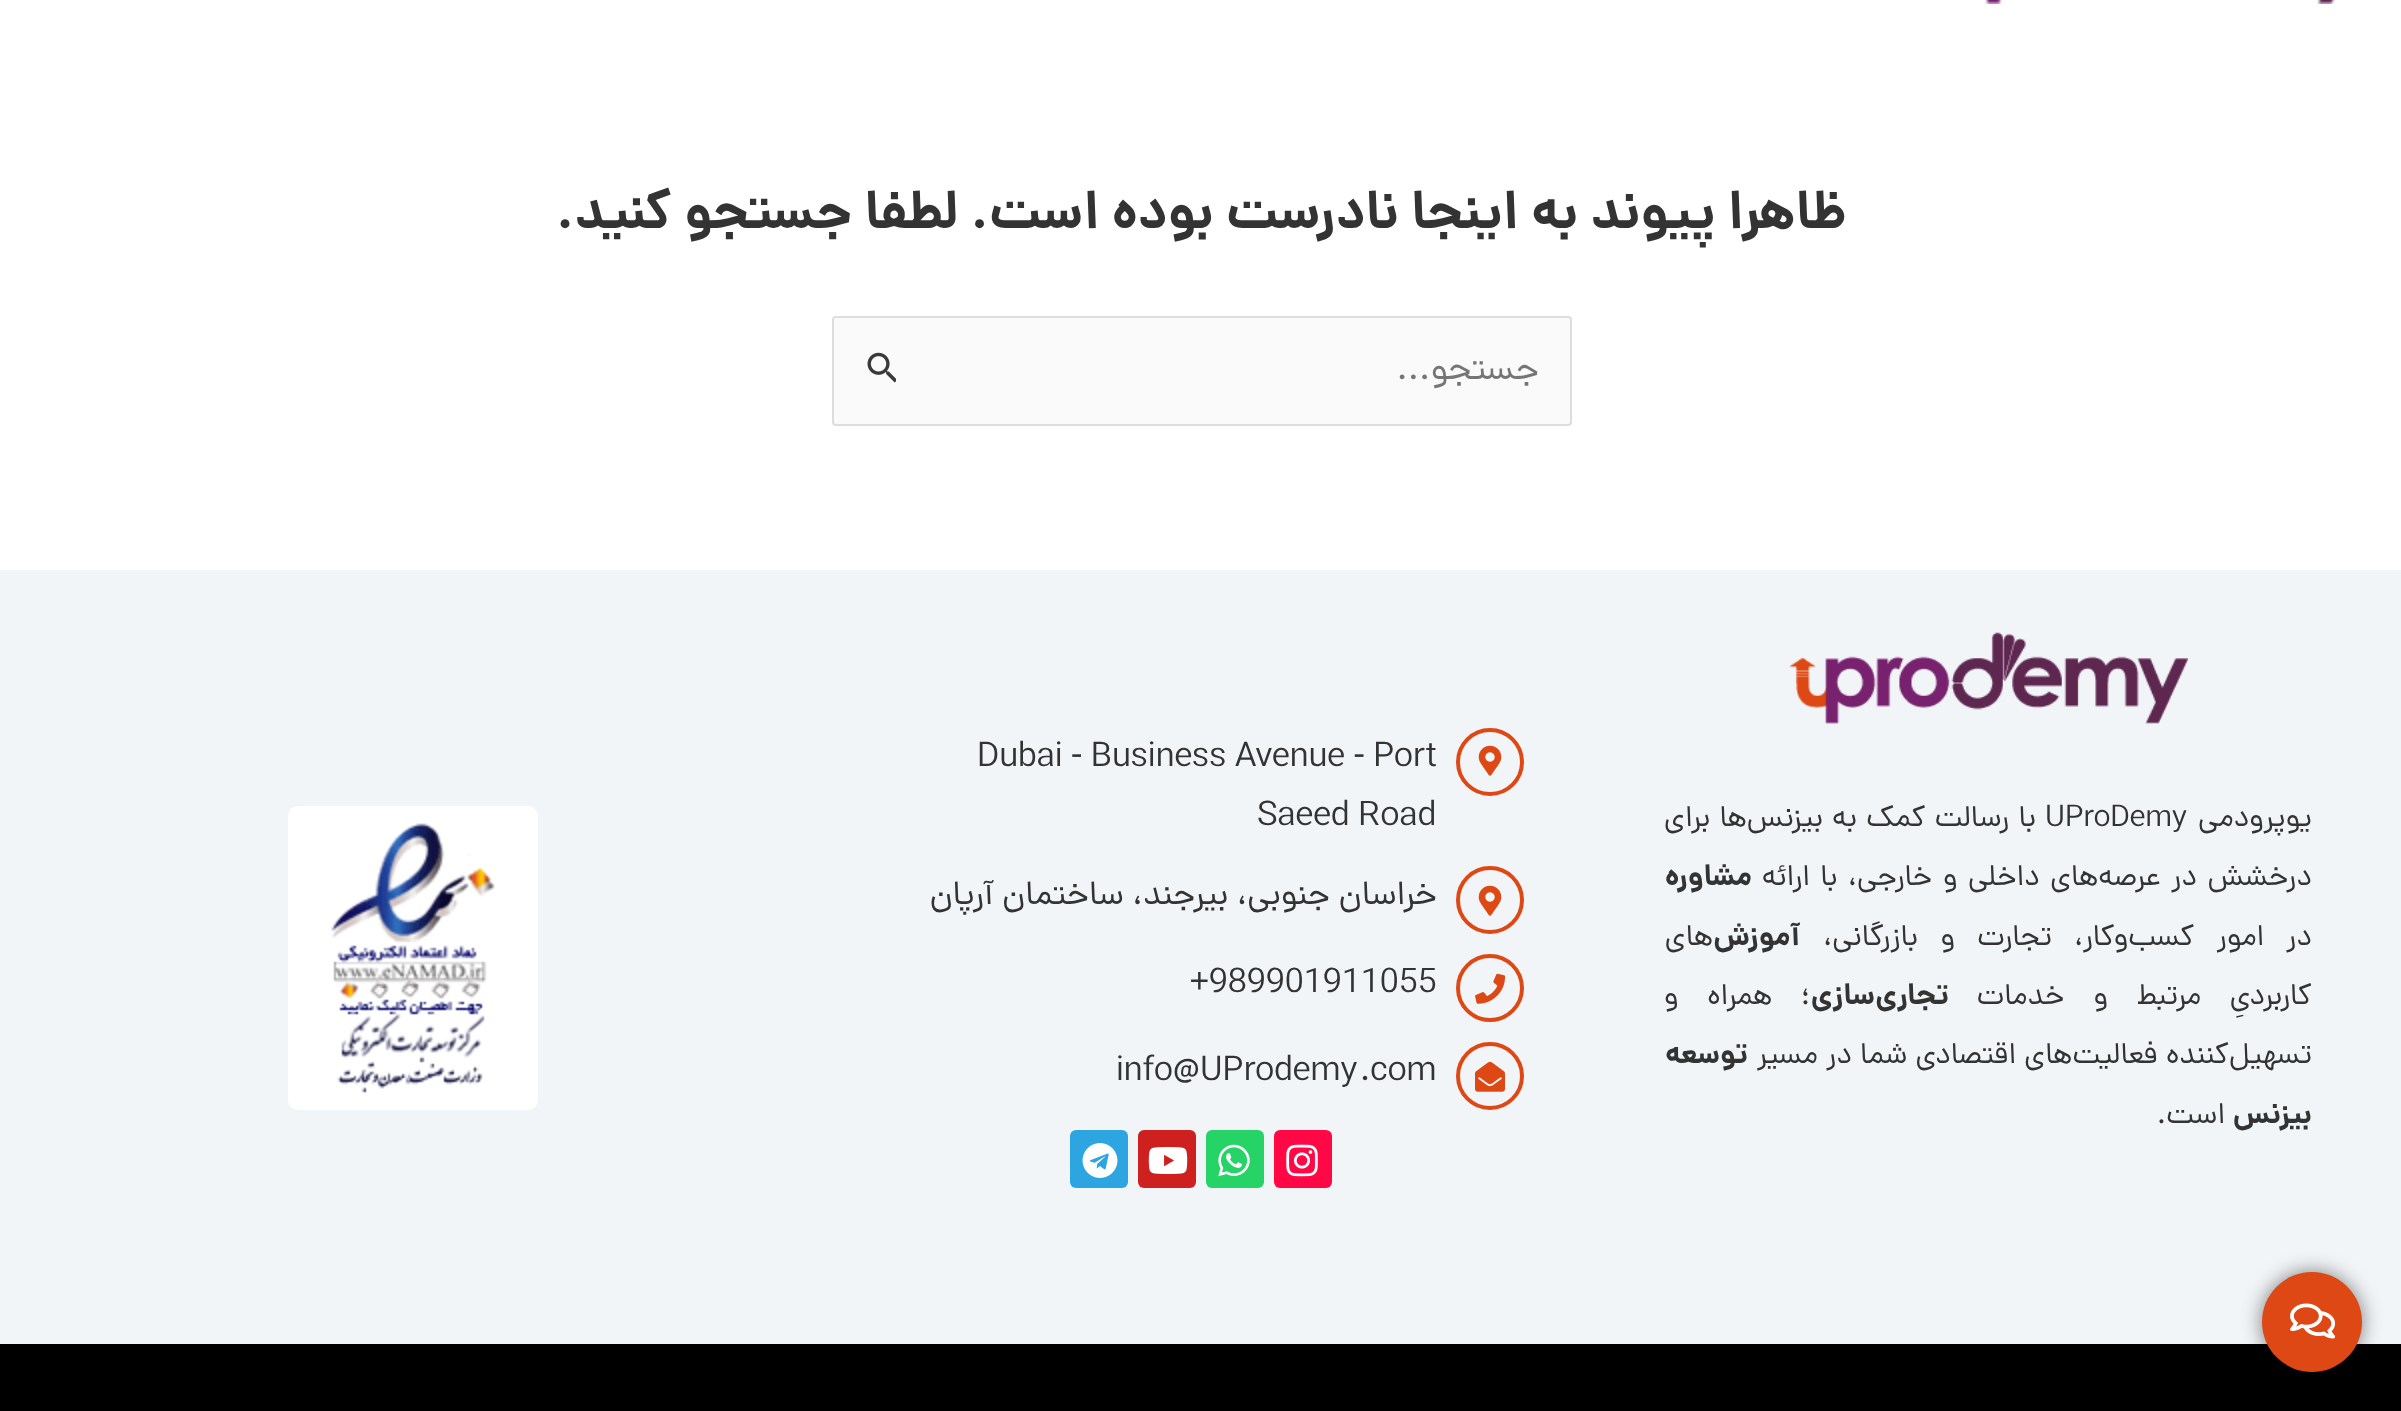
<?xml version="1.0" encoding="UTF-8"?>
<svg xmlns="http://www.w3.org/2000/svg" width="2401" height="1411">
    <defs>
        <filter id="blur1" x="-50%" y="-200%" width="200%" height="500%"><feGaussianBlur stdDeviation="10"/></filter>
    </defs>
    <rect width="100%" height="100%" fill="#FFFFFF"/>
    <image x="1985" y="0" width="350" height="4" href="img_01.png"/>
    <text x="1847" y="228" font-family="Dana" font-size="54" font-weight="700" direction="rtl" fill="#333333">ظاهرا پیوند به اینجا نادرست بوده است. لطفا جستجو کنید.</text>
    <rect x="833" y="317" width="738" height="108" rx="3" fill="#FAFAFA" stroke="#DDDDDD" stroke-width="2"/>
    <text x="1539" y="379" font-family="Dana" font-size="36" direction="rtl" fill="#757575">جستجو...</text>
    <image x="867" y="352" width="29" height="31" href="img_02.png"/>
    <rect x="0" y="570" width="2401" height="774" fill="#F2F5F7"/>
    <image x="1789" y="632" width="399" height="92" href="img_03.png"/>
    <text x="2312" y="826" font-family="Dana" font-size="30" direction="rtl" fill="#333333">یوپرودمی</text>
    <text x="2045" y="826" font-family="Dana" font-size="30" fill="#333333">UProDemy</text>
    <text x="2036" y="826" word-spacing="1.5" font-family="Dana" font-size="30" direction="rtl" fill="#333333">با رسالت کمک به بیزنس‌ها برای</text>
    <text x="2312" y="885" word-spacing="2.75" font-family="Dana" font-size="30" direction="rtl" fill="#333333">درخشش در عرصه‌های داخلی و خارجی، با ارائه</text>
    <text x="1752" y="885" font-family="Dana" font-size="30" font-weight="700" direction="rtl" fill="#333333">مشاوره</text>
    <text x="2312" y="945" word-spacing="14.5" font-family="Dana" font-size="30" direction="rtl" fill="#333333">در امور کسب‌وکار، تجارت و بازرگانی،</text>
    <text x="1800" y="945" font-family="Dana" font-size="30" font-weight="700" direction="rtl" fill="#333333">آموزش‌</text>
    <text x="1713" y="945" font-family="Dana" font-size="30" direction="rtl" fill="#333333">های</text>
    <text x="2312" y="1004" word-spacing="21" font-family="Dana" font-size="30" direction="rtl" fill="#333333">کاربردیِ مرتبط و خدمات</text>
    <text x="1949" y="1004" font-family="Dana" font-size="30" font-weight="700" direction="rtl" fill="#333333">تجاری‌سازی</text>
    <text x="1810" y="1004" word-spacing="21" font-family="Dana" font-size="30" direction="rtl" fill="#333333">؛ همراه و</text>
    <text x="2312" y="1063" word-spacing="0.5" font-family="Dana" font-size="30" direction="rtl" fill="#333333">تسهیل‌کننده فعالیت‌های اقتصادی شما در مسیر</text>
    <text x="1748" y="1063" font-family="Dana" font-size="30" font-weight="700" direction="rtl" fill="#333333">توسعه</text>
    <text x="2312" y="1123" font-family="Dana" font-size="30" font-weight="700" direction="rtl" fill="#333333">بیزنس</text>
    <text x="2225" y="1123" font-family="Dana" font-size="30" direction="rtl" fill="#333333">است.</text>
    <rect x="0" y="1344" width="2401" height="67" fill="#000000"/>
    <rect x="2262" y="1272" width="100" height="100" rx="50" fill="#000000" fill-opacity="0.5" filter="url(#blur1)"/>
    <circle cx="2312" cy="1322" r="50" fill="#DD4814"/>
    <image x="2290" y="1303" width="46" height="36" href="img_04.png"/>
    <circle cx="1490" cy="762" r="32" fill="none" stroke="#DD4814" stroke-width="4"/>
    <image x="1478" y="745" width="24" height="31" href="img_05.png"/>
    <text x="977" y="766" font-family="Dana" font-size="34" fill="#333333">Dubai - Business Avenue - Port</text>
    <text x="1257" y="825" font-family="Dana" font-size="34" fill="#333333">Saeed Road</text>
    <circle cx="1490" cy="900" r="32" fill="none" stroke="#DD4814" stroke-width="4"/>
    <image x="1478" y="885" width="24" height="31" href="img_05.png"/>
    <text x="1437" y="904" font-family="Dana" font-size="34" direction="rtl" fill="#333333">خراسان جنوبی، بیرجند، ساختمان آرپان</text>
    <circle cx="1490" cy="988" r="32" fill="none" stroke="#DD4814" stroke-width="4"/>
    <image x="1475" y="973" width="31" height="31" href="img_06.png"/>
    <text x="1190" y="992" font-family="Dana" font-size="34" fill="#333333">+989901911055</text>
    <circle cx="1490" cy="1076" r="32" fill="none" stroke="#DD4814" stroke-width="4"/>
    <image x="1475" y="1061" width="30" height="31" href="img_07.png"/>
    <text x="1116" y="1080" font-family="Dana" font-size="34" fill="#333333">info@UProdemy.com</text>
    <rect x="1274" y="1130" width="58" height="58" rx="6" fill="#FF0845"/>
    <image x="1286" y="1144" width="32" height="33" href="img_08.png"/>
    <rect x="1206" y="1130" width="58" height="58" rx="6" fill="#25D366"/>
    <image x="1218" y="1144" width="32" height="33" href="img_09.png"/>
    <rect x="1138" y="1130" width="58" height="58" rx="6" fill="#CD201F"/>
    <image x="1148" y="1147" width="40" height="27" href="img_10.png"/>
    <rect x="1070" y="1130" width="58" height="58" rx="6" fill="#2CA5E0"/>
    <image x="1082" y="1143" width="36" height="35" href="img_11.png"/>
    <rect x="288" y="806" width="250" height="304" rx="10" fill="#FFFFFF"/>
    <image x="331" y="823" width="164" height="270" href="img_12.png"/>
</svg>
